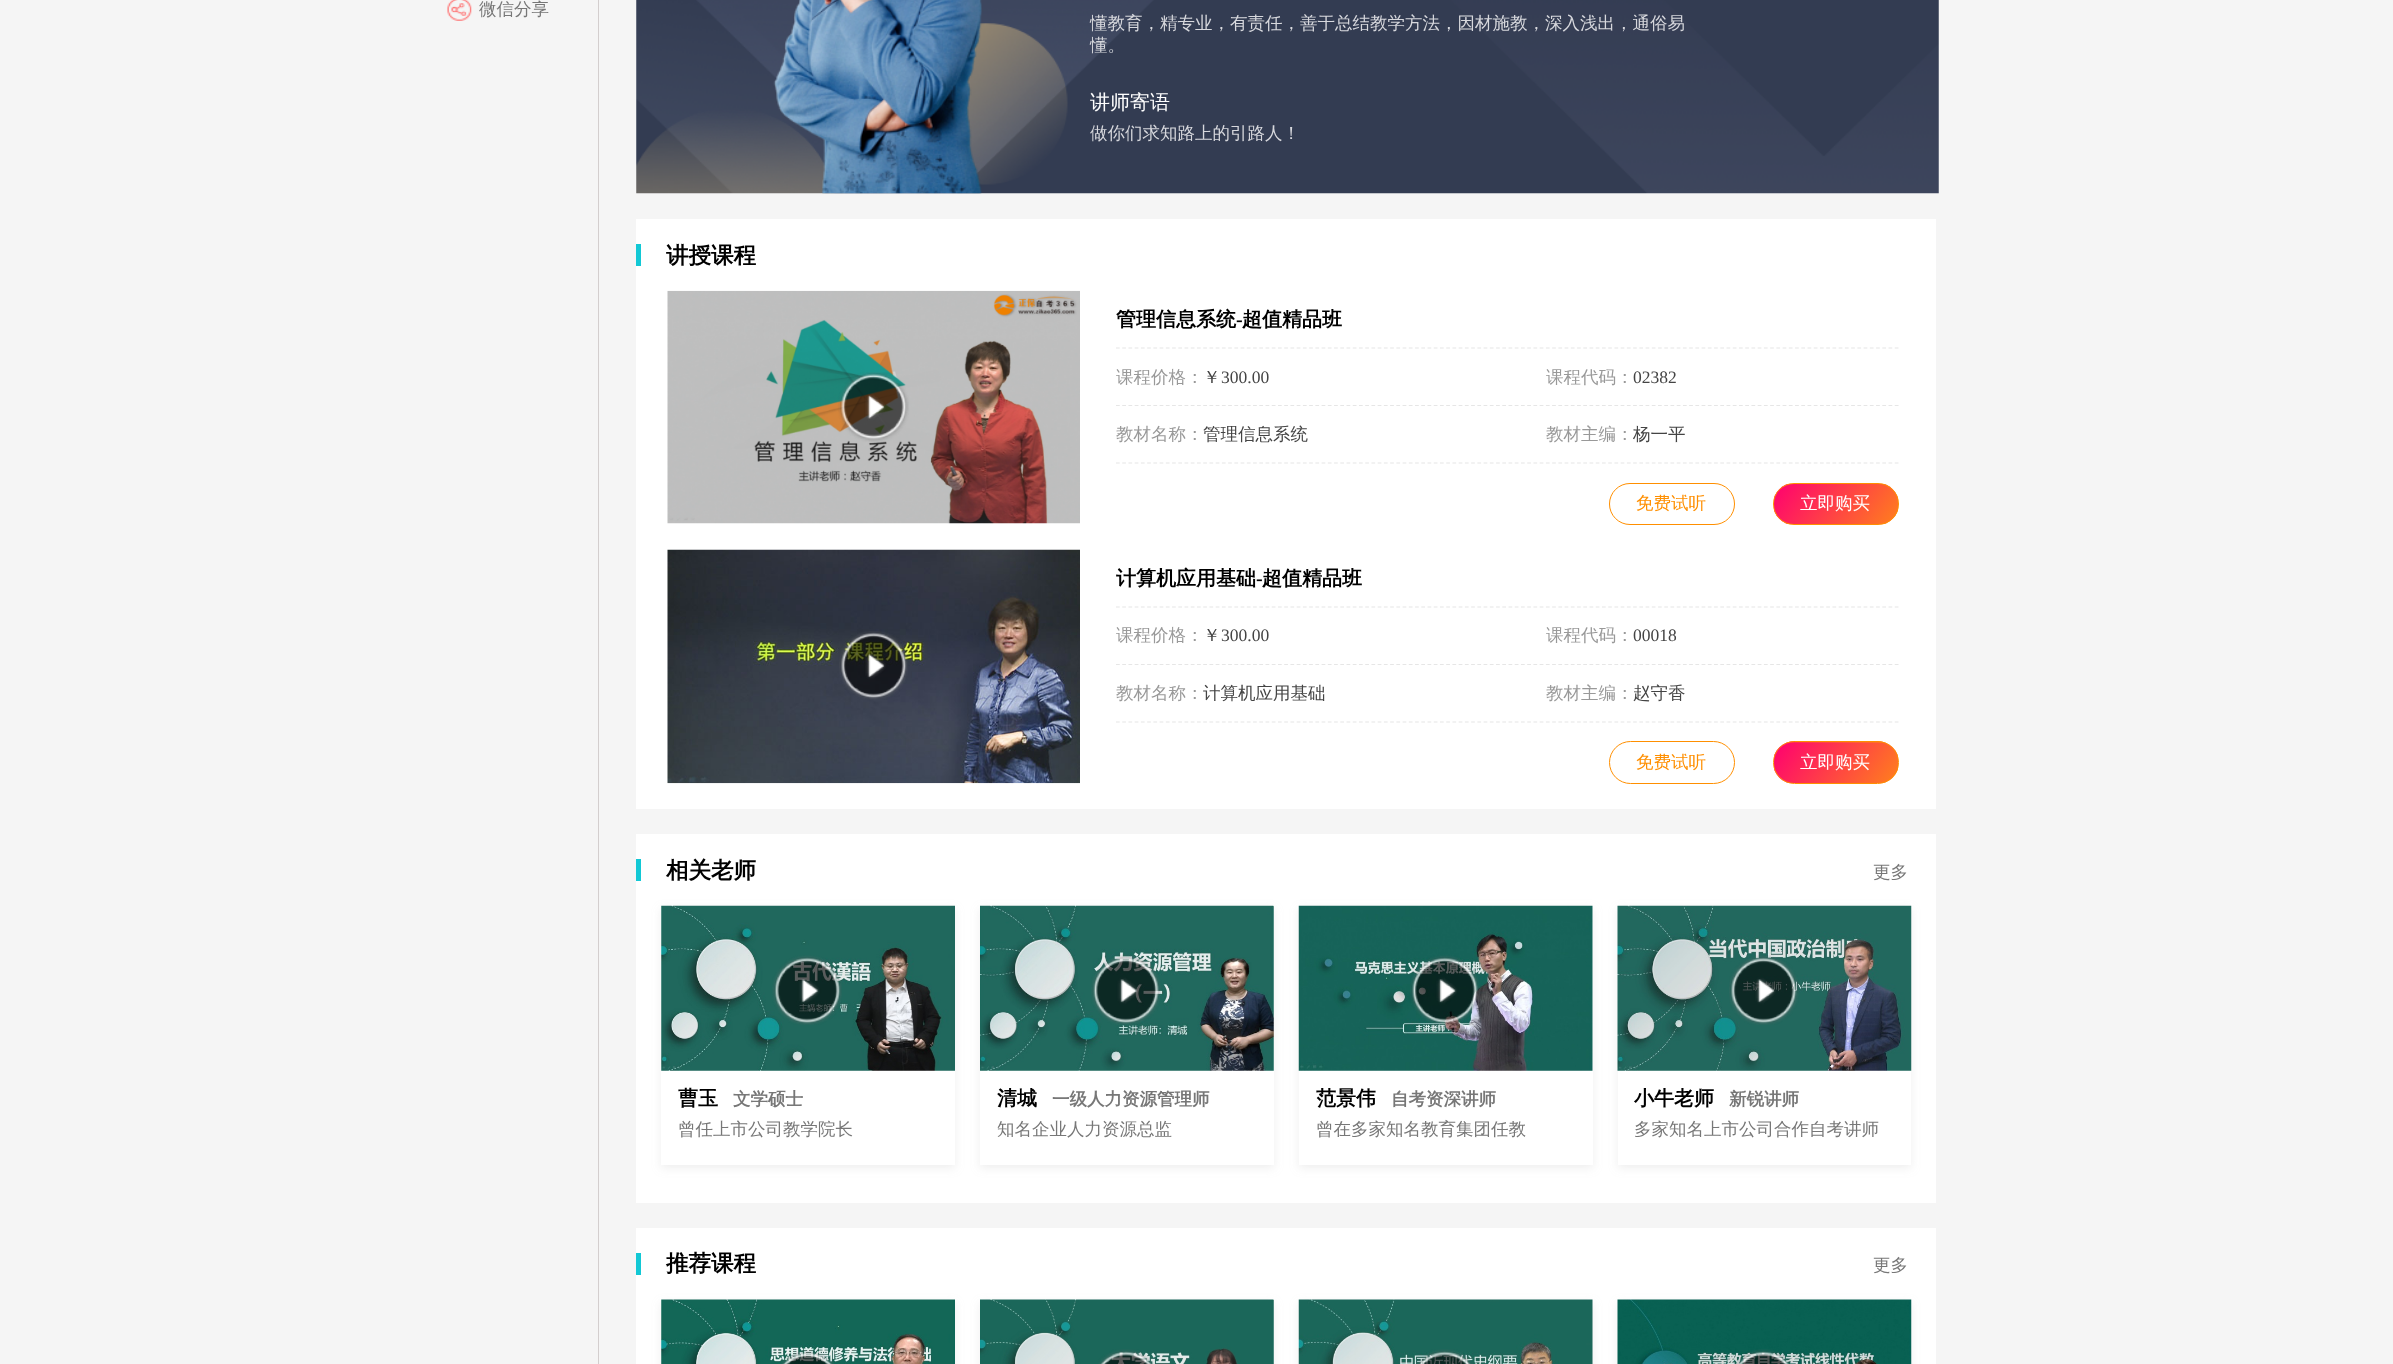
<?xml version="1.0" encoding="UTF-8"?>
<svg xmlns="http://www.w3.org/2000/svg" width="2393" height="1364">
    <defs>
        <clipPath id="clip1"><rect x="1773" y="483" width="126" height="42" rx="21"/></clipPath>
        <linearGradient id="g1" gradientUnits="userSpaceOnUse" x1="1787" y1="467" x2="1885" y2="541"><stop offset="0" stop-color="#FF0070"/><stop offset="1" stop-color="#FF7F1D"/></linearGradient>
        <clipPath id="clip2"><rect x="1773" y="741" width="126" height="43" rx="21.5"/></clipPath>
        <linearGradient id="g2" gradientUnits="userSpaceOnUse" x1="1787" y1="686" x2="1885" y2="759"><stop offset="0" stop-color="#FF0070"/><stop offset="1" stop-color="#FF7F1D"/></linearGradient>
        <linearGradient id="g3" gradientUnits="userSpaceOnUse" x1="1787" y1="726" x2="1885" y2="799"><stop offset="0" stop-color="#FF0070"/><stop offset="1" stop-color="#FF7F1D"/></linearGradient>
        <clipPath id="clip3"><path d="M 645 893 H 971 V 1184 H 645 Z M 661 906 H 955 V 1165 H 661 Z" clip-rule="evenodd"/></clipPath>
        <filter id="blur1" x="-50%" y="-200%" width="200%" height="500%"><feGaussianBlur stdDeviation="5"/></filter>
        <clipPath id="clip4"><path d="M 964 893 H 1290 V 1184 H 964 Z M 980 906 H 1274 V 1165 H 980 Z" clip-rule="evenodd"/></clipPath>
        <clipPath id="clip5"><path d="M 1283 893 H 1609 V 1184 H 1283 Z M 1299 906 H 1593 V 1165 H 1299 Z" clip-rule="evenodd"/></clipPath>
        <clipPath id="clip6"><path d="M 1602 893 H 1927 V 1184 H 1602 Z M 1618 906 H 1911 V 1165 H 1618 Z" clip-rule="evenodd"/></clipPath>
    </defs>
    <rect width="100%" height="100%" fill="#F5F5F5"/>
    <image x="447" y="0" width="25" height="21" href="img_01.png"/>
    <text x="479" y="15" font-family="WenQuanYi Zen Hei" font-size="17.5" font-weight="500" fill="#777777">微信分享</text>
    <rect x="598" y="0" width="1" height="1364" fill="#D3CECE"/>
    <image x="636" y="0" width="1303" height="194" href="img_02.png"/>
    <image x="773" y="0" width="209" height="194" href="img_03.png"/>
    <text font-family="WenQuanYi Zen Hei" font-size="17.5" font-weight="500" fill="#D7D8DD">
        <tspan x="1090" y="29">懂教育，精专业，有责任，善于总结教学方法，因材施教，深入浅出，通俗易</tspan>
        <tspan x="1090" y="51">懂。</tspan>
    </text>
    <text x="1090" y="109" font-family="WenQuanYi Zen Hei" font-size="20" font-weight="500" fill="#FFFFFF">讲师寄语</text>
    <text x="1090" y="139" font-family="WenQuanYi Zen Hei" font-size="17.5" font-weight="500" fill="#D7D8DD">做你们求知路上的引路人！</text>
    <rect x="636" y="219" width="1300" height="590" fill="#FFFFFF"/>
    <rect x="636" y="244" width="5" height="22" fill="#12C8D5"/>
    <text x="666" y="263" font-family="WenQuanYi Zen Hei" font-size="22.5" font-weight="700" fill="#000000">讲授课程</text>
    <image x="667" y="290" width="413" height="234" href="img_04.png"/>
    <image x="838" y="372" width="71" height="70" href="img_05.png"/>
    <path d="M 1116 348 H 1899" fill="none" stroke="#E6E6E6" stroke-width="1.2" stroke-dasharray="3.75 2.48"/>
    <text x="1116" y="326" font-family="WenQuanYi Zen Hei" font-size="20" font-weight="700" fill="#000000">管理信息系统</text>
    <text x="1236" y="326" font-family="Liberation Serif" font-size="20" font-weight="700" fill="#000000">-</text>
    <text x="1242" y="326" font-family="WenQuanYi Zen Hei" font-size="20" font-weight="700" fill="#000000">超值精品班</text>
    <path d="M 1116 405.5 H 1899" fill="none" stroke="#E6E6E6" stroke-width="1.2" stroke-dasharray="3.75 2.48"/>
    <text x="1116" y="383" font-family="WenQuanYi Zen Hei" font-size="17.5" font-weight="500" fill="#999999">课程价格：</text>
    <text x="1203" y="383" font-family="WenQuanYi Zen Hei" font-size="17.5" font-weight="500" fill="#444444">￥</text>
    <text x="1221" y="383" font-family="Liberation Serif" font-size="17.5" fill="#444444">300.00</text>
    <text x="1546" y="383" font-family="WenQuanYi Zen Hei" font-size="17.5" font-weight="500" fill="#999999">课程代码：</text>
    <text x="1633" y="383" font-family="Liberation Serif" font-size="17.5" fill="#444444">02382</text>
    <path d="M 1116 463 H 1899" fill="none" stroke="#E6E6E6" stroke-width="1.2" stroke-dasharray="3.75 2.48"/>
    <text x="1116" y="440" font-family="WenQuanYi Zen Hei" font-size="17.5" font-weight="500" fill="#999999">教材名称：</text>
    <text x="1203" y="440" font-family="WenQuanYi Zen Hei" font-size="17.5" font-weight="500" fill="#444444">管理信息系统</text>
    <text x="1546" y="440" font-family="WenQuanYi Zen Hei" font-size="17.5" font-weight="500" fill="#999999">教材主编：</text>
    <text x="1633" y="440" font-family="WenQuanYi Zen Hei" font-size="17.5" font-weight="500" fill="#444444">杨一平</text>
    <rect x="1609.5" y="483.5" width="125" height="41" rx="20.5" fill="none" stroke="#FF8F00"/>
    <text x="1636" y="509" font-family="WenQuanYi Zen Hei" font-size="17.5" font-weight="500" fill="#FF8F00">免费试听</text>
    <g clip-path="url(#clip1)">
        <rect x="1774" y="484" width="124" height="40" fill="url(#g1)"/>
    </g>
    <rect x="1773.5" y="483.5" width="125" height="41" rx="20.5" fill="none" stroke="#FF8F00"/>
    <text x="1800" y="509" font-family="WenQuanYi Zen Hei" font-size="17.5" font-weight="500" fill="#FFFFFF">立即购买</text>
    <image x="667" y="549" width="413" height="235" href="img_06.png"/>
    <image x="839" y="631" width="69" height="69" href="img_07.png"/>
    <path d="M 1116 607 H 1899" fill="none" stroke="#E6E6E6" stroke-width="1.2" stroke-dasharray="3.75 2.48"/>
    <text x="1116" y="585" font-family="WenQuanYi Zen Hei" font-size="20" font-weight="700" fill="#000000">计算机应用基础</text>
    <text x="1256" y="585" font-family="Liberation Serif" font-size="20" font-weight="700" fill="#000000">-</text>
    <text x="1262" y="585" font-family="WenQuanYi Zen Hei" font-size="20" font-weight="700" fill="#000000">超值精品班</text>
    <path d="M 1116 664.5 H 1899" fill="none" stroke="#E6E6E6" stroke-width="1.2" stroke-dasharray="3.75 2.48"/>
    <text x="1116" y="641" font-family="WenQuanYi Zen Hei" font-size="17.5" font-weight="500" fill="#999999">课程价格：</text>
    <text x="1203" y="641" font-family="WenQuanYi Zen Hei" font-size="17.5" font-weight="500" fill="#444444">￥</text>
    <text x="1221" y="641" font-family="Liberation Serif" font-size="17.5" fill="#444444">300.00</text>
    <text x="1546" y="641" font-family="WenQuanYi Zen Hei" font-size="17.5" font-weight="500" fill="#999999">课程代码：</text>
    <text x="1633" y="641" font-family="Liberation Serif" font-size="17.5" fill="#444444">00018</text>
    <path d="M 1116 722 H 1899" fill="none" stroke="#E6E6E6" stroke-width="1.2" stroke-dasharray="3.75 2.48"/>
    <text x="1116" y="699" font-family="WenQuanYi Zen Hei" font-size="17.5" font-weight="500" fill="#999999">教材名称：</text>
    <text x="1203" y="699" font-family="WenQuanYi Zen Hei" font-size="17.5" font-weight="500" fill="#444444">计算机应用基础</text>
    <text x="1546" y="699" font-family="WenQuanYi Zen Hei" font-size="17.5" font-weight="500" fill="#999999">教材主编：</text>
    <text x="1633" y="699" font-family="WenQuanYi Zen Hei" font-size="17.5" font-weight="500" fill="#444444">赵守香</text>
    <rect x="1609.5" y="741.5" width="125" height="42" rx="21" fill="none" stroke="#FF8F00"/>
    <text x="1636" y="768" font-family="WenQuanYi Zen Hei" font-size="17.5" font-weight="500" fill="#FF8F00">免费试听</text>
    <g clip-path="url(#clip2)">
        <rect x="1785" y="741" width="102" height="2" fill="url(#g2)"/>
        <rect x="1774" y="743" width="124" height="40" fill="url(#g3)"/>
    </g>
    <rect x="1773.5" y="741.5" width="125" height="42" rx="21" fill="none" stroke="#FF8F00"/>
    <text x="1800" y="768" font-family="WenQuanYi Zen Hei" font-size="17.5" font-weight="500" fill="#FFFFFF">立即购买</text>
    <rect x="636" y="834" width="1300" height="369" fill="#FFFFFF"/>
    <rect x="636" y="859" width="5" height="22" fill="#12C8D5"/>
    <text x="666" y="878" font-family="WenQuanYi Zen Hei" font-size="22.5" font-weight="700" fill="#000000">相关老师</text>
    <text x="1873" y="878" font-family="WenQuanYi Zen Hei" font-size="17.5" font-weight="500" fill="#777777">更多</text>
    <g clip-path="url(#clip3)">
        <rect x="661" y="909" width="294" height="259" fill="#BCBCBC" fill-opacity="0.26" filter="url(#blur1)"/>
    </g>
    <image x="661" y="905" width="294" height="166" href="img_08.png"/>
    <image x="772" y="955" width="70" height="70" href="img_09.png"/>
    <text x="678" y="1105" font-family="WenQuanYi Zen Hei" font-size="20" font-weight="700" fill="#000000">曹玉</text>
    <text x="733" y="1105" font-family="WenQuanYi Zen Hei" font-size="17.5" font-weight="700" fill="#777777">文学硕士</text>
    <text x="678" y="1135" font-family="WenQuanYi Zen Hei" font-size="17.5" font-weight="500" fill="#777777">曾任上市公司教学院长</text>
    <g clip-path="url(#clip4)">
        <rect x="980" y="909" width="294" height="259" fill="#BCBCBC" fill-opacity="0.26" filter="url(#blur1)"/>
    </g>
    <image x="980" y="905" width="294" height="166" href="img_10.png"/>
    <image x="1091" y="955" width="71" height="70" href="img_11.png"/>
    <text x="997" y="1105" font-family="WenQuanYi Zen Hei" font-size="20" font-weight="700" fill="#000000">清城</text>
    <text x="1052" y="1105" font-family="WenQuanYi Zen Hei" font-size="17.5" font-weight="700" fill="#777777">一级人力资源管理师</text>
    <text x="997" y="1135" font-family="WenQuanYi Zen Hei" font-size="17.5" font-weight="500" fill="#777777">知名企业人力资源总监</text>
    <g clip-path="url(#clip5)">
        <rect x="1299" y="909" width="294" height="259" fill="#BCBCBC" fill-opacity="0.26" filter="url(#blur1)"/>
    </g>
    <image x="1298" y="905" width="295" height="166" href="img_12.png"/>
    <image x="1410" y="955" width="70" height="71" href="img_13.png"/>
    <text x="1316" y="1105" font-family="WenQuanYi Zen Hei" font-size="20" font-weight="700" fill="#000000">范景伟</text>
    <text x="1391" y="1105" font-family="WenQuanYi Zen Hei" font-size="17.5" font-weight="700" fill="#777777">自考资深讲师</text>
    <text x="1316" y="1135" font-family="WenQuanYi Zen Hei" font-size="17.5" font-weight="500" fill="#777777">曾在多家知名教育集团任教</text>
    <g clip-path="url(#clip6)">
        <rect x="1618" y="909" width="293" height="259" fill="#BCBCBC" fill-opacity="0.26" filter="url(#blur1)"/>
    </g>
    <image x="1617" y="905" width="295" height="166" href="img_14.png"/>
    <image x="1729" y="955" width="70" height="70" href="img_15.png"/>
    <text x="1634" y="1105" font-family="WenQuanYi Zen Hei" font-size="20" font-weight="700" fill="#000000">小牛老师</text>
    <text x="1729" y="1105" font-family="WenQuanYi Zen Hei" font-size="17.5" font-weight="700" fill="#777777">新锐讲师</text>
    <text x="1634" y="1135" font-family="WenQuanYi Zen Hei" font-size="17.5" font-weight="500" fill="#777777">多家知名上市公司合作自考讲师</text>
    <rect x="636" y="1228" width="1300" height="136" fill="#FFFFFF"/>
    <rect x="636" y="1253" width="5" height="22" fill="#12C8D5"/>
    <text x="666" y="1271" font-family="WenQuanYi Zen Hei" font-size="22.5" font-weight="700" fill="#000000">推荐课程</text>
    <text x="1873" y="1271" font-family="WenQuanYi Zen Hei" font-size="17.5" font-weight="500" fill="#777777">更多</text>
    <rect x="661" y="1303" width="294" height="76" fill="#BCBCBC" fill-opacity="0.26" filter="url(#blur1)"/>
    <image x="661" y="1299" width="294" height="65" href="img_16.png"/>
    <image x="780" y="1350" width="55" height="14" href="img_17.png"/>
    <rect x="980" y="1303" width="294" height="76" fill="#BCBCBC" fill-opacity="0.26" filter="url(#blur1)"/>
    <image x="980" y="1299" width="294" height="65" href="img_18.png"/>
    <image x="1098" y="1349" width="57" height="15" href="img_19.png"/>
    <rect x="1299" y="1303" width="294" height="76" fill="#BCBCBC" fill-opacity="0.26" filter="url(#blur1)"/>
    <image x="1298" y="1299" width="295" height="65" href="img_20.png"/>
    <image x="1417" y="1349" width="56" height="15" href="img_21.png"/>
    <rect x="1618" y="1303" width="293" height="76" fill="#BCBCBC" fill-opacity="0.26" filter="url(#blur1)"/>
    <image x="1617" y="1299" width="295" height="65" href="img_22.png"/>
    <image x="1736" y="1349" width="56" height="15" href="img_23.png"/>
</svg>
